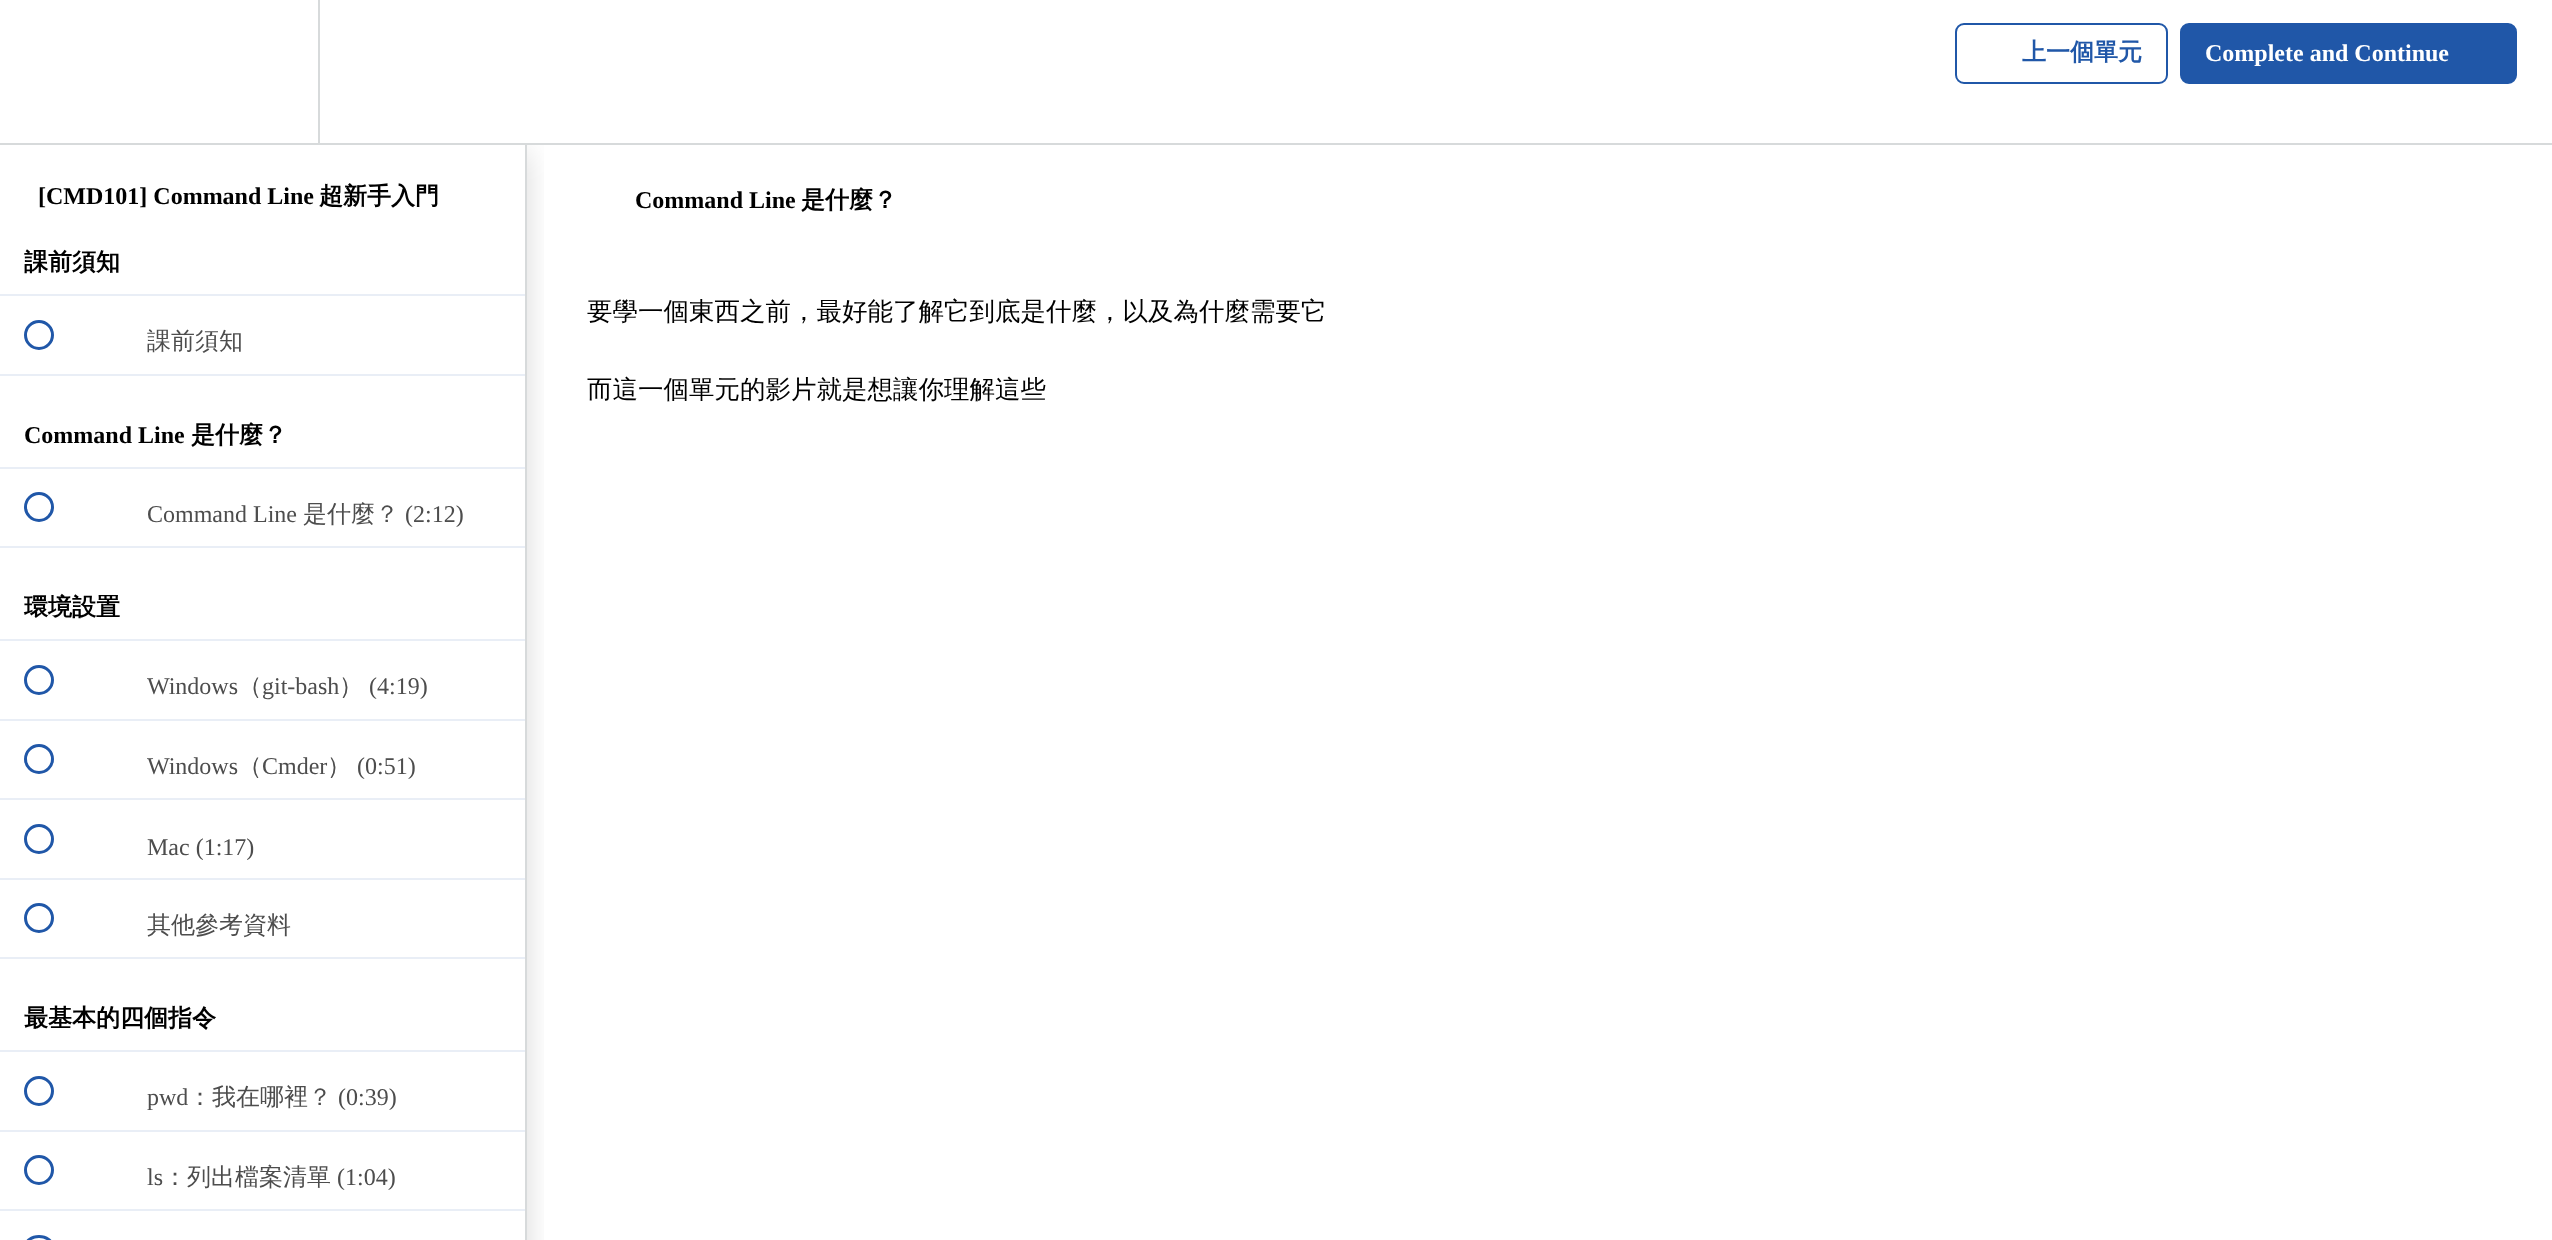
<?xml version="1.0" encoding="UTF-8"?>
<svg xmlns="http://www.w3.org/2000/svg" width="2552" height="1240">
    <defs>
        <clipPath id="clip1"><rect x="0" y="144" width="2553" height="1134"/></clipPath>
        <clipPath id="clip2"><rect x="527" y="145" width="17" height="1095"/></clipPath>
        <filter id="blur1" x="-50%" y="-200%" width="200%" height="500%"><feGaussianBlur stdDeviation="15"/></filter>
    </defs>
    <rect width="100%" height="100%" fill="#FFFFFF"/>
    <g clip-path="url(#clip1)">
        <g clip-path="url(#clip2)">
            <rect x="0" y="153" width="527" height="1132" fill="#20272D" fill-opacity="0.15" filter="url(#blur1)"/>
        </g>
    </g>
    <rect x="525" y="144" width="2" height="1096" fill="#D7DADB"/>
    <rect x="0" y="143" width="2552" height="2" fill="#D7DADB"/>
    <rect x="318" y="0" width="2" height="143" fill="#D7DADB"/>
    <rect x="1956" y="24" width="211" height="59" rx="8" fill="none" stroke="#2057A8" stroke-width="2"/>
    <text x="2022" y="60" font-family="WenQuanYi Zen Hei" font-size="24" font-weight="700" fill="#2057A8">上一個單元</text>
    <rect x="2181" y="24" width="335" height="59" rx="8" fill="#2057A8" stroke="#2057A8" stroke-width="2"/>
    <text x="2205" y="61" font-family="Liberation Serif" font-size="24" font-weight="700" fill="#FFFFFF">Complete and Continue</text>
    <text x="38" y="204" font-family="Liberation Serif" font-size="24" font-weight="700" fill="#000000">[CMD101] Command Line</text>
    <text x="319" y="204" font-family="WenQuanYi Zen Hei" font-size="24" font-weight="700" fill="#000000">超新手入門</text>
    <rect x="0" y="294" width="525" height="2" fill="#E9EEF6"/>
    <text x="24" y="270" font-family="WenQuanYi Zen Hei" font-size="24" font-weight="700" fill="#000000">課前須知</text>
    <rect x="0" y="374" width="525" height="2" fill="#E9EEF6"/>
    <circle cx="39" cy="335" r="13.5" fill="none" stroke="#2057A8" stroke-width="3"/>
    <text x="147" y="349" font-family="WenQuanYi Zen Hei" font-size="24" font-weight="500" fill="#4D4D4D">課前須知</text>
    <rect x="0" y="467" width="525" height="2" fill="#E9EEF6"/>
    <text x="24" y="443" font-family="Liberation Serif" font-size="24" font-weight="700" fill="#000000">Command Line</text>
    <text x="191" y="443" font-family="WenQuanYi Zen Hei" font-size="24" font-weight="700" fill="#000000">是什麼？</text>
    <rect x="0" y="546" width="525" height="2" fill="#E9EEF6"/>
    <circle cx="39" cy="507" r="13.5" fill="none" stroke="#2057A8" stroke-width="3"/>
    <text x="147" y="522" font-family="Liberation Serif" font-size="24" fill="#4D4D4D">Command Line</text>
    <text x="303" y="522" font-family="WenQuanYi Zen Hei" font-size="24" font-weight="500" fill="#4D4D4D">是什麼？</text>
    <text x="405" y="522" font-family="Liberation Serif" font-size="24" fill="#4D4D4D">(2:12)</text>
    <rect x="0" y="639" width="525" height="2" fill="#E9EEF6"/>
    <text x="24" y="615" font-family="WenQuanYi Zen Hei" font-size="24" font-weight="700" fill="#000000">環境設置</text>
    <rect x="0" y="719" width="525" height="2" fill="#E9EEF6"/>
    <circle cx="39" cy="680" r="13.5" fill="none" stroke="#2057A8" stroke-width="3"/>
    <text x="147" y="694" font-family="Liberation Serif" font-size="24" fill="#4D4D4D">Windows</text>
    <text x="238" y="694" font-family="WenQuanYi Zen Hei" font-size="24" font-weight="500" fill="#4D4D4D">（</text>
    <text x="262" y="694" font-family="Liberation Serif" font-size="24" fill="#4D4D4D">git-bash</text>
    <text x="339" y="694" font-family="WenQuanYi Zen Hei" font-size="24" font-weight="500" fill="#4D4D4D">）</text>
    <text x="369" y="694" font-family="Liberation Serif" font-size="24" fill="#4D4D4D">(4:19)</text>
    <rect x="0" y="798" width="525" height="2" fill="#E9EEF6"/>
    <circle cx="39" cy="759" r="13.5" fill="none" stroke="#2057A8" stroke-width="3"/>
    <text x="147" y="774" font-family="Liberation Serif" font-size="24" fill="#4D4D4D">Windows</text>
    <text x="238" y="774" font-family="WenQuanYi Zen Hei" font-size="24" font-weight="500" fill="#4D4D4D">（</text>
    <text x="262" y="774" font-family="Liberation Serif" font-size="24" fill="#4D4D4D">Cmder</text>
    <text x="327" y="774" font-family="WenQuanYi Zen Hei" font-size="24" font-weight="500" fill="#4D4D4D">）</text>
    <text x="357" y="774" font-family="Liberation Serif" font-size="24" fill="#4D4D4D">(0:51)</text>
    <rect x="0" y="878" width="525" height="2" fill="#E9EEF6"/>
    <circle cx="39" cy="839" r="13.5" fill="none" stroke="#2057A8" stroke-width="3"/>
    <text x="147" y="855" font-family="Liberation Serif" font-size="24" fill="#4D4D4D">Mac (1:17)</text>
    <rect x="0" y="957" width="525" height="2" fill="#E9EEF6"/>
    <circle cx="39" cy="918" r="13.5" fill="none" stroke="#2057A8" stroke-width="3"/>
    <text x="147" y="933" font-family="WenQuanYi Zen Hei" font-size="24" font-weight="500" fill="#4D4D4D">其他參考資料</text>
    <rect x="0" y="1050" width="525" height="2" fill="#E9EEF6"/>
    <text x="24" y="1026" font-family="WenQuanYi Zen Hei" font-size="24" font-weight="700" fill="#000000">最基本的四個指令</text>
    <rect x="0" y="1130" width="525" height="2" fill="#E9EEF6"/>
    <circle cx="39" cy="1091" r="13.5" fill="none" stroke="#2057A8" stroke-width="3"/>
    <text x="147" y="1105" font-family="Liberation Serif" font-size="24" fill="#4D4D4D">pwd</text>
    <text x="188" y="1105" font-family="WenQuanYi Zen Hei" font-size="24" font-weight="500" fill="#4D4D4D">：我在哪裡？</text>
    <text x="338" y="1105" font-family="Liberation Serif" font-size="24" fill="#4D4D4D">(0:39)</text>
    <rect x="0" y="1209" width="525" height="2" fill="#E9EEF6"/>
    <circle cx="39" cy="1170" r="13.5" fill="none" stroke="#2057A8" stroke-width="3"/>
    <text x="147" y="1185" font-family="Liberation Serif" font-size="24" fill="#4D4D4D">ls</text>
    <text x="163" y="1185" font-family="WenQuanYi Zen Hei" font-size="24" font-weight="500" fill="#4D4D4D">：列出檔案清單</text>
    <text x="337" y="1185" font-family="Liberation Serif" font-size="24" fill="#4D4D4D">(1:04)</text>
    <rect x="25.5" y="1236.5" width="27" height="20" rx="13.5" fill="none" stroke="#2057A8" stroke-width="3"/>
    <text x="635" y="208" font-family="Liberation Serif" font-size="24" font-weight="700" fill="#000000">Command Line</text>
    <text x="801" y="208" font-family="WenQuanYi Zen Hei" font-size="24" font-weight="700" fill="#000000">是什麼？</text>
    <text x="587" y="320" font-family="WenQuanYi Zen Hei" font-size="25.5" font-weight="500" fill="#000000">要學一個東西之前，最好能了解它到底是什麼，以及為什麼需要它</text>
    <text x="587" y="398" font-family="WenQuanYi Zen Hei" font-size="25.5" font-weight="500" fill="#000000">而這一個單元的影片就是想讓你理解這些</text>
</svg>
